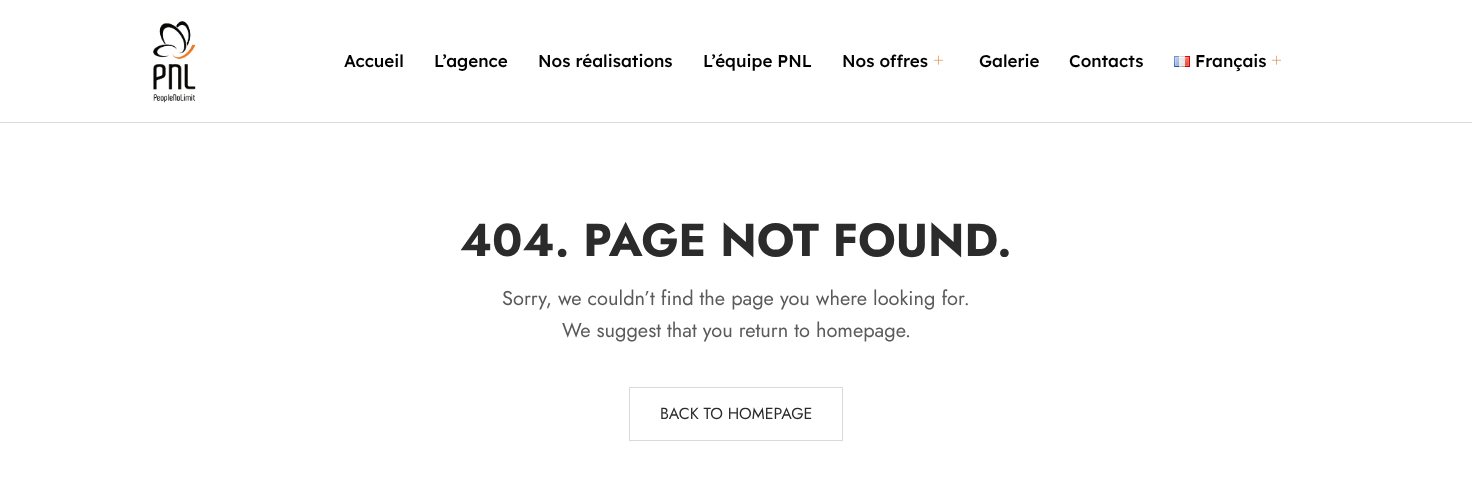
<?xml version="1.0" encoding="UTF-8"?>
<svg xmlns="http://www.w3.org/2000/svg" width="1472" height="490">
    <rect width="100%" height="100%" fill="#FFFFFF"/>
    <image x="153" y="21" width="43" height="82" href="img_01.png"/>
    <text x="344" y="67" font-family="Lexend" font-size="17" font-weight="500" fill="#000000">Accueil</text>
    <text x="434" y="67" font-family="Lexend" font-size="17" font-weight="500" fill="#000000">L’agence</text>
    <text x="538" y="67" font-family="Lexend" font-size="17" font-weight="500" fill="#000000">Nos réalisations</text>
    <text x="703" y="67" font-family="Lexend" font-size="17" font-weight="500" fill="#000000">L’équipe PNL</text>
    <text x="842" y="67" font-family="Lexend" font-size="17" font-weight="500" fill="#000000">Nos offres</text>
    <image x="934" y="55" width="9" height="10" href="img_02.png"/>
    <text x="979" y="67" font-family="Lexend" font-size="17" font-weight="500" fill="#000000">Galerie</text>
    <text x="1069" y="67" font-family="Lexend" font-size="17" font-weight="500" fill="#000000">Contacts</text>
    <image x="1174" y="56" width="16" height="11" href="img_03.png"/>
    <text x="1195" y="67" font-family="Lexend" font-size="17" font-weight="500" fill="#000000">Français</text>
    <image x="1272" y="55" width="9" height="10" href="img_02.png"/>
    <rect x="0" y="122" width="1472" height="1" fill="#D9D9D9"/>
    <text x="460" y="256" font-family="Jost" font-size="46" font-weight="700" fill="#2B2B2B">404. PAGE NOT FOUND.</text>
    <text x="502" y="305" font-family="Jost" font-size="20" fill="#5A5A5A">Sorry, we couldn’t find the page you where looking for.</text>
    <text x="562" y="337" font-family="Jost" font-size="20" fill="#5A5A5A">We suggest that you return to homepage.</text>
    <rect x="629.5" y="387.5" width="213" height="53" fill="none" stroke="#D9D9D9"/>
    <text x="660" y="419" font-family="Jost" font-size="16" fill="#2B2B2B">BACK TO HOMEPAGE</text>
</svg>
